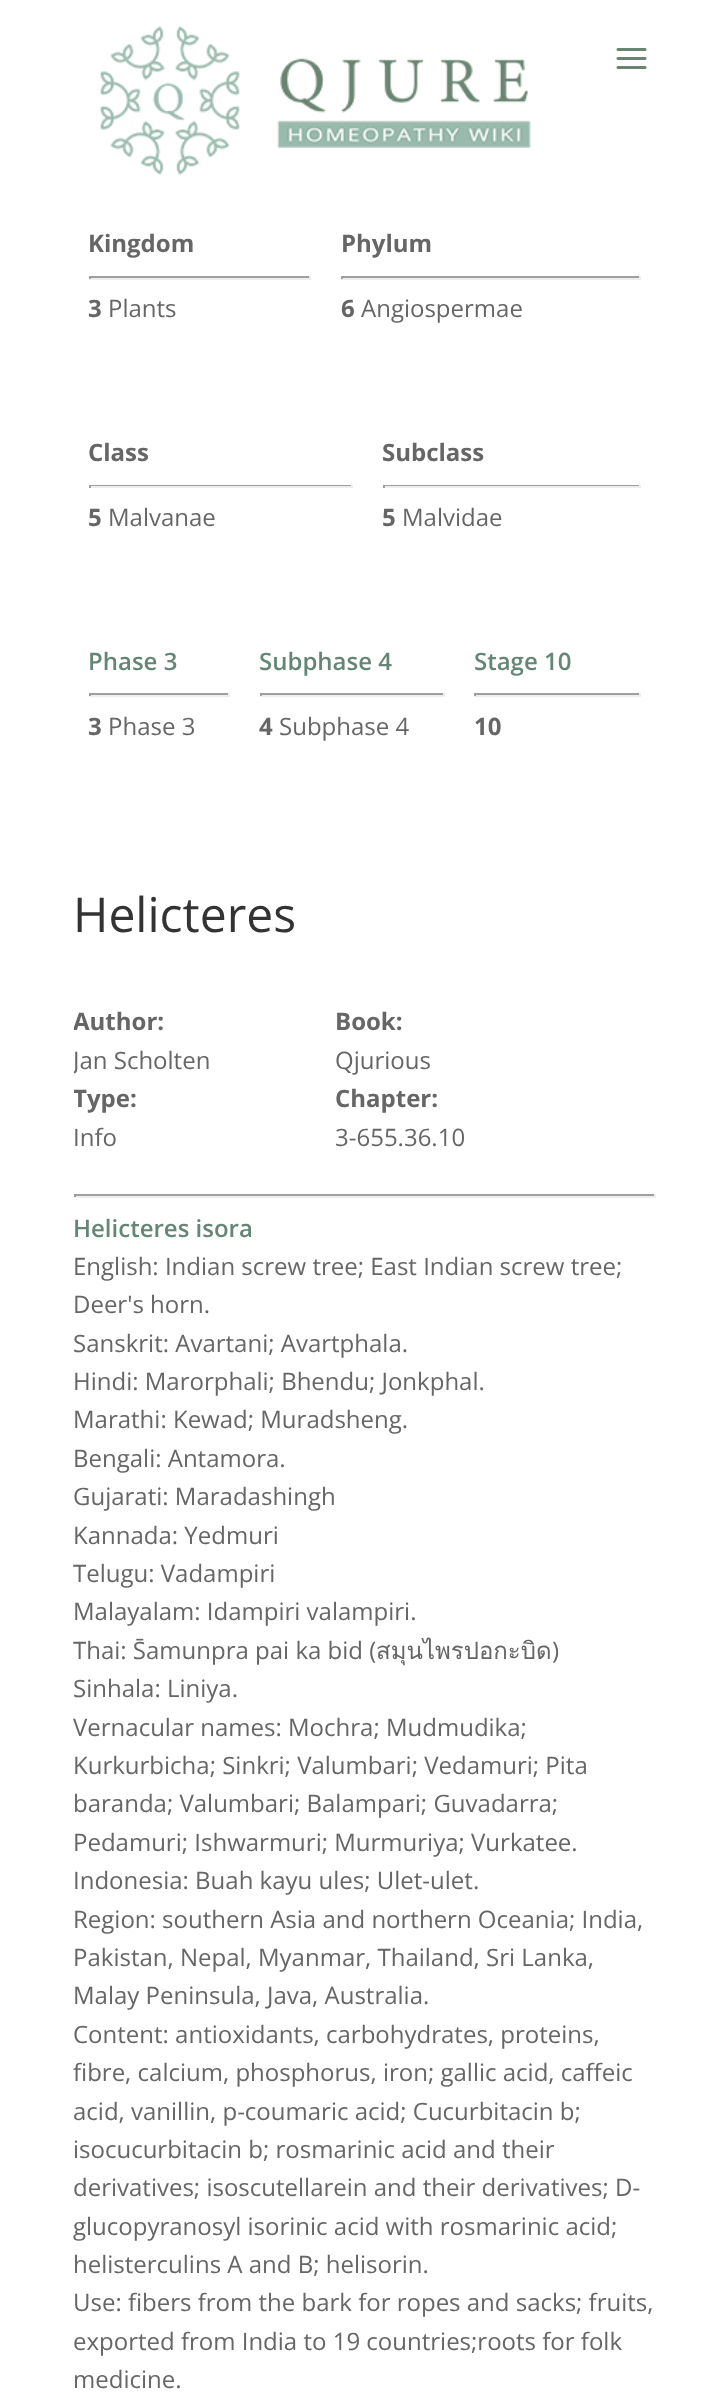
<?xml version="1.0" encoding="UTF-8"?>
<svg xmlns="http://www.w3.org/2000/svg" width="727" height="2400">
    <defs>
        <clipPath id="clip1"><rect x="74" y="1004" width="582" height="153"/></clipPath>
    </defs>
    <rect width="100%" height="100%" fill="#FFFFFF"/>
    <image x="100" y="26" width="431" height="149" href="img_01.png"/>
    <image x="616" y="48" width="31" height="21" href="img_02.png"/>
    <text x="88" y="252" font-family="Open Sans" font-size="24" font-weight="700" fill="#666666">Kingdom</text>
    <rect x="89" y="276" width="222" height="2" fill="#9F9F9F"/>
    <rect x="309" y="276" width="2" height="3" fill="#EEEEEE"/>
    <rect x="89" y="278" width="222" height="2" fill="#EEEEEE"/>
    <rect x="89" y="276" width="2" height="3" fill="#9F9F9F"/>
    <text x="88" y="317" font-family="Open Sans" font-size="24" font-weight="700" fill="#666666">3</text>
    <text x="108" y="317" font-family="Open Sans" font-size="24" fill="#666666">Plants</text>
    <text x="341" y="252" font-family="Open Sans" font-size="24" font-weight="700" fill="#666666">Phylum</text>
    <rect x="341" y="276" width="300" height="2" fill="#9F9F9F"/>
    <rect x="639" y="276" width="2" height="3" fill="#EEEEEE"/>
    <rect x="341" y="278" width="300" height="2" fill="#EEEEEE"/>
    <rect x="341" y="276" width="2" height="3" fill="#9F9F9F"/>
    <text x="341" y="317" font-family="Open Sans" font-size="24" font-weight="700" fill="#666666">6</text>
    <text x="361" y="317" font-family="Open Sans" font-size="24" fill="#666666">Angiospermae</text>
    <text x="88" y="461" font-family="Open Sans" font-size="24" font-weight="700" fill="#666666">Class</text>
    <rect x="89" y="485" width="264" height="1" fill="#9F9F9F"/>
    <rect x="351" y="485" width="2" height="3" fill="#EEEEEE"/>
    <rect x="89" y="486" width="264" height="2" fill="#EEEEEE"/>
    <rect x="89" y="485" width="2" height="3" fill="#9F9F9F"/>
    <text x="88" y="526" font-family="Open Sans" font-size="24" font-weight="700" fill="#666666">5</text>
    <text x="108" y="526" font-family="Open Sans" font-size="24" fill="#666666">Malvanae</text>
    <text x="382" y="461" font-family="Open Sans" font-size="24" font-weight="700" fill="#666666">Subclass</text>
    <rect x="383" y="485" width="258" height="1" fill="#9F9F9F"/>
    <rect x="639" y="485" width="2" height="3" fill="#EEEEEE"/>
    <rect x="383" y="486" width="258" height="2" fill="#EEEEEE"/>
    <rect x="383" y="485" width="2" height="3" fill="#9F9F9F"/>
    <text x="382" y="526" font-family="Open Sans" font-size="24" font-weight="700" fill="#666666">5</text>
    <text x="402" y="526" font-family="Open Sans" font-size="24" fill="#666666">Malvidae</text>
    <text x="88" y="670" font-family="Open Sans" font-size="24" font-weight="600" fill="#648677">Phase 3</text>
    <rect x="89" y="693" width="141" height="2" fill="#9F9F9F"/>
    <rect x="228" y="693" width="2" height="3" fill="#EEEEEE"/>
    <rect x="89" y="695" width="141" height="2" fill="#EEEEEE"/>
    <rect x="89" y="693" width="2" height="3" fill="#9F9F9F"/>
    <text x="88" y="735" font-family="Open Sans" font-size="24" font-weight="700" fill="#666666">3</text>
    <text x="108" y="735" font-family="Open Sans" font-size="24" fill="#666666">Phase 3</text>
    <text x="259" y="670" font-family="Open Sans" font-size="24" font-weight="600" fill="#648677">Subphase 4</text>
    <rect x="260" y="693" width="184" height="2" fill="#9F9F9F"/>
    <rect x="443" y="693" width="2" height="3" fill="#EEEEEE"/>
    <rect x="260" y="695" width="184" height="2" fill="#EEEEEE"/>
    <rect x="260" y="693" width="2" height="3" fill="#9F9F9F"/>
    <text x="259" y="735" font-family="Open Sans" font-size="24" font-weight="700" fill="#666666">4</text>
    <text x="279" y="735" font-family="Open Sans" font-size="24" fill="#666666">Subphase 4</text>
    <text x="474" y="670" font-family="Open Sans" font-size="24" font-weight="600" fill="#648677">Stage 10</text>
    <rect x="474" y="693" width="167" height="2" fill="#9F9F9F"/>
    <rect x="639" y="693" width="2" height="3" fill="#EEEEEE"/>
    <rect x="474" y="695" width="167" height="2" fill="#EEEEEE"/>
    <rect x="474" y="693" width="2" height="3" fill="#9F9F9F"/>
    <text x="474" y="735" font-family="Open Sans" font-size="24" font-weight="700" fill="#666666">10</text>
    <text x="73" y="932" font-family="Open Sans" font-size="48" fill="#333333">Helicteres</text>
    <g clip-path="url(#clip1)">
        <text x="73" y="1030" font-family="Open Sans" font-size="24" font-weight="700" fill="#666666">Author:</text>
        <text x="73" y="1069" font-family="Open Sans" font-size="24" fill="#666666">Jan Scholten</text>
    </g>
    <text x="335" y="1030" font-family="Open Sans" font-size="24" font-weight="700" fill="#666666">Book:</text>
    <text x="335" y="1069" font-family="Open Sans" font-size="24" fill="#666666">Qjurious</text>
    <g clip-path="url(#clip1)">
        <text x="73" y="1107" font-family="Open Sans" font-size="24" font-weight="700" fill="#666666">Type:</text>
    </g>
    <text x="73" y="1146" font-family="Open Sans" font-size="24" fill="#666666">Info</text>
    <text x="335" y="1107" font-family="Open Sans" font-size="24" font-weight="700" fill="#666666">Chapter:</text>
    <text x="335" y="1146" font-family="Open Sans" font-size="24" fill="#666666">3-655.36.10</text>
    <rect x="74" y="1194" width="582" height="2" fill="#9F9F9F"/>
    <rect x="654" y="1194" width="2" height="3" fill="#EEEEEE"/>
    <rect x="74" y="1196" width="582" height="2" fill="#EEEEEE"/>
    <rect x="74" y="1194" width="2" height="3" fill="#9F9F9F"/>
    <text x="73" y="1237" font-family="Open Sans" font-size="24" font-weight="600" fill="#648677">Helicteres isora</text>
    <text font-family="Open Sans" font-size="24" fill="#666666">
        <tspan x="73" y="1275">English: Indian screw tree; East Indian screw tree;</tspan>
        <tspan x="73" y="1313">Deer's horn.</tspan>
        <tspan x="73" y="1352">Sanskrit: Avartani; Avartphala.</tspan>
        <tspan x="73" y="1390">Hindi: Marorphali; Bhendu; Jonkphal.</tspan>
        <tspan x="73" y="1428">Marathi: Kewad; Muradsheng.</tspan>
        <tspan x="73" y="1467">Bengali: Antamora.</tspan>
        <tspan x="73" y="1505">Gujarati: Maradashingh</tspan>
        <tspan x="73" y="1544">Kannada: Yedmuri</tspan>
        <tspan x="73" y="1582">Telugu: Vadampiri</tspan>
        <tspan x="73" y="1620">Malayalam: Idampiri valampiri.</tspan>
        <tspan x="73" y="1659">Thai: S̄amunpra pai ka bid (</tspan>
    </text>
    <text x="376" y="1659" font-family="Loma" font-size="24" fill="#666666">สมุนไพรปอกะบิด</text>
    <text x="552" y="1659" font-family="Open Sans" font-size="24" fill="#666666">)</text>
    <text font-family="Open Sans" font-size="24" fill="#666666">
        <tspan x="73" y="1697">Sinhala: Liniya.</tspan>
        <tspan x="73" y="1736">Vernacular names: Mochra; Mudmudika;</tspan>
        <tspan x="73" y="1774">Kurkurbicha; Sinkri; Valumbari; Vedamuri; Pita</tspan>
        <tspan x="73" y="1812">baranda; Valumbari; Balampari; Guvadarra;</tspan>
        <tspan x="73" y="1851">Pedamuri; Ishwarmuri; Murmuriya; Vurkatee.</tspan>
        <tspan x="73" y="1889">Indonesia: Buah kayu ules; Ulet-ulet.</tspan>
        <tspan x="73" y="1928">Region: southern Asia and northern Oceania; India,</tspan>
        <tspan x="73" y="1966">Pakistan, Nepal, Myanmar, Thailand, Sri Lanka,</tspan>
        <tspan x="73" y="2004">Malay Peninsula, Java, Australia.</tspan>
        <tspan x="73" y="2043">Content: antioxidants, carbohydrates, proteins,</tspan>
        <tspan x="73" y="2081">fibre, calcium, phosphorus, iron; gallic acid, caffeic</tspan>
        <tspan x="73" y="2120">acid, vanillin, p-coumaric acid; Cucurbitacin b;</tspan>
        <tspan x="73" y="2158">isocucurbitacin b; rosmarinic acid and their</tspan>
        <tspan x="73" y="2196">derivatives; isoscutellarein and their derivatives; D-</tspan>
        <tspan x="73" y="2235">glucopyranosyl isorinic acid with rosmarinic acid;</tspan>
        <tspan x="73" y="2273">helisterculins A and B; helisorin.</tspan>
        <tspan x="73" y="2311">Use: fibers from the bark for ropes and sacks; fruits,</tspan>
        <tspan x="73" y="2350">exported from India to 19 countries;roots for folk</tspan>
        <tspan x="73" y="2388">medicine.</tspan>
    </text>
</svg>
